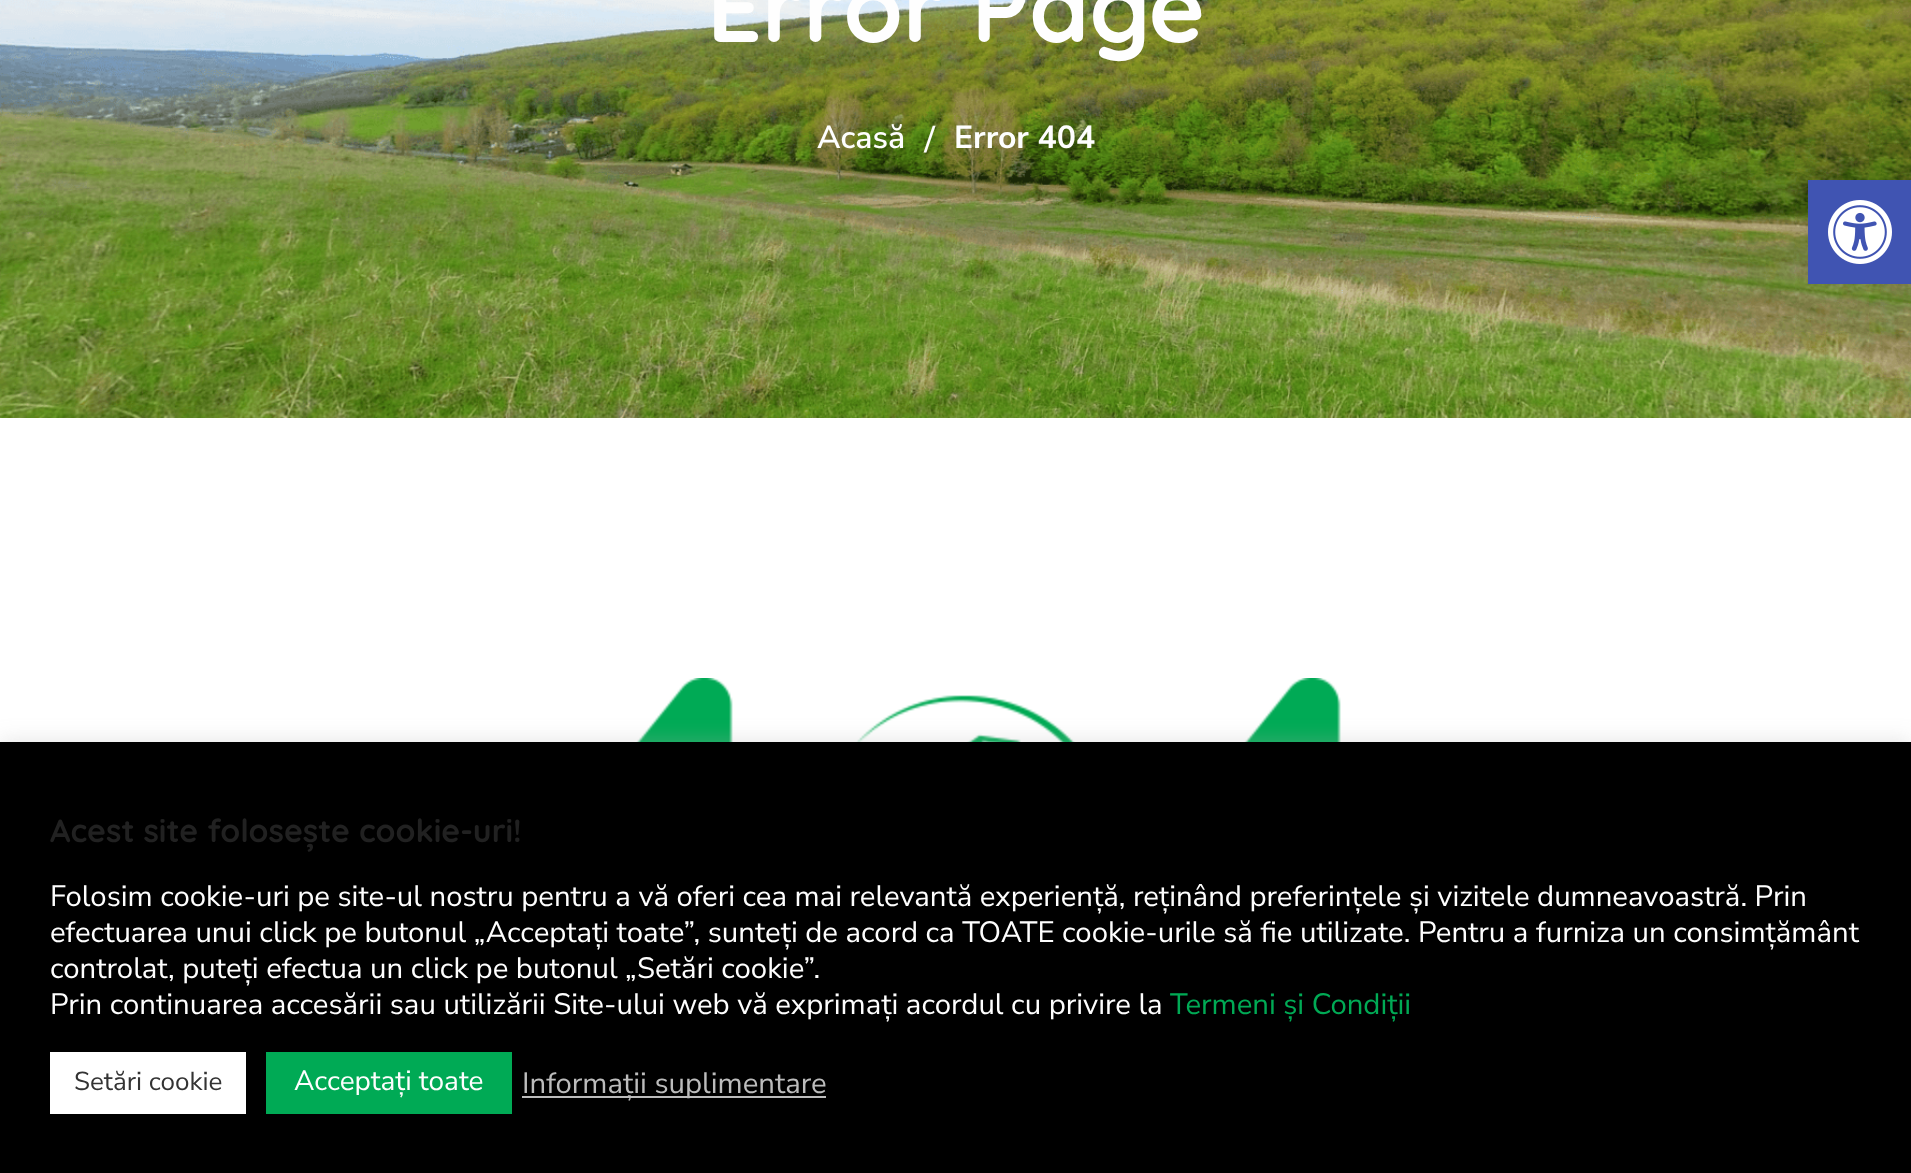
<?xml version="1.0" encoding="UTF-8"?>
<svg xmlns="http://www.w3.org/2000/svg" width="1911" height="1173">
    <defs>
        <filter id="blur1" x="-50%" y="-200%" width="200%" height="500%"><feGaussianBlur stdDeviation="10"/></filter>
    </defs>
    <rect width="100%" height="100%" fill="#FFFFFF"/>
    <image x="0" y="0" width="1911" height="418" href="img_01.png"/>
    <text x="707" y="42" font-family="Quicksand" font-size="96" font-weight="700" fill="#FEFEFE">Error Page</text>
    <text x="817" y="148" font-family="Nunito Sans" font-size="32" font-weight="600" fill="#FEFEFE">Acasă</text>
    <text x="924" y="152" font-family="Liberation Serif" font-size="40" font-weight="700" fill="#FEFEFE">/</text>
    <text x="954" y="148" font-family="Nunito Sans" font-size="32" font-weight="700" fill="#FEFEFE">Error 404</text>
    <rect x="1808" y="180" width="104" height="104" fill="#000000" fill-opacity="0.1" filter="url(#blur1)"/>
    <rect x="1808" y="180" width="103" height="104" fill="#4054B2"/>
    <image x="1828" y="200" width="64" height="64" href="img_02.png"/>
    <image x="636" y="678" width="705" height="64" href="img_03.png"/>
    <rect x="0" y="740" width="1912" height="432" fill="#ACABAB" fill-opacity="0.3" filter="url(#blur1)"/>
    <rect x="0" y="742" width="1911" height="431" fill="#000000"/>
    <text x="50" y="842" font-family="Quicksand" font-size="32" font-weight="700" fill="#212121">Acest site folosește cookie-uri!</text>
    <text font-family="Nunito Sans" font-size="29.33" fill="#FEFEFE">
        <tspan x="50" y="906">Folosim cookie-uri pe site-ul nostru pentru a vă oferi cea mai relevantă experiență, reținând preferințele și vizitele dumneavoastră. Prin</tspan>
        <tspan x="50" y="942">efectuarea unui click pe butonul „Acceptați toate”, sunteți de acord ca TOATE cookie-urile să fie utilizate. Pentru a furniza un consimțământ</tspan>
        <tspan x="50" y="978">controlat, puteți efectua un click pe butonul „Setări cookie”.</tspan>
        <tspan x="50" y="1014">Prin continuarea accesării sau utilizării Site-ului web vă exprimați acordul cu privire la</tspan>
    </text>
    <text x="1170" y="1014" font-family="Nunito Sans" font-size="29.33" fill="#00AA55">Termeni și Condiții</text>
    <rect x="50" y="1052" width="196" height="62" fill="#FFFFFF"/>
    <text x="74" y="1090" font-family="Nunito Sans" font-size="26" fill="#333333">Setări cookie</text>
    <rect x="266" y="1052" width="246" height="62" fill="#00AA55"/>
    <text x="294" y="1090" font-family="Nunito Sans" font-size="28" fill="#FEFEFE">Acceptați toate</text>
    <rect x="522" y="1096" width="304" height="2" fill="#BCBCBC"/>
    <text x="522" y="1093" font-family="Nunito Sans" font-size="29.33" fill="#BCBCBC">Informații suplimentare</text>
</svg>
